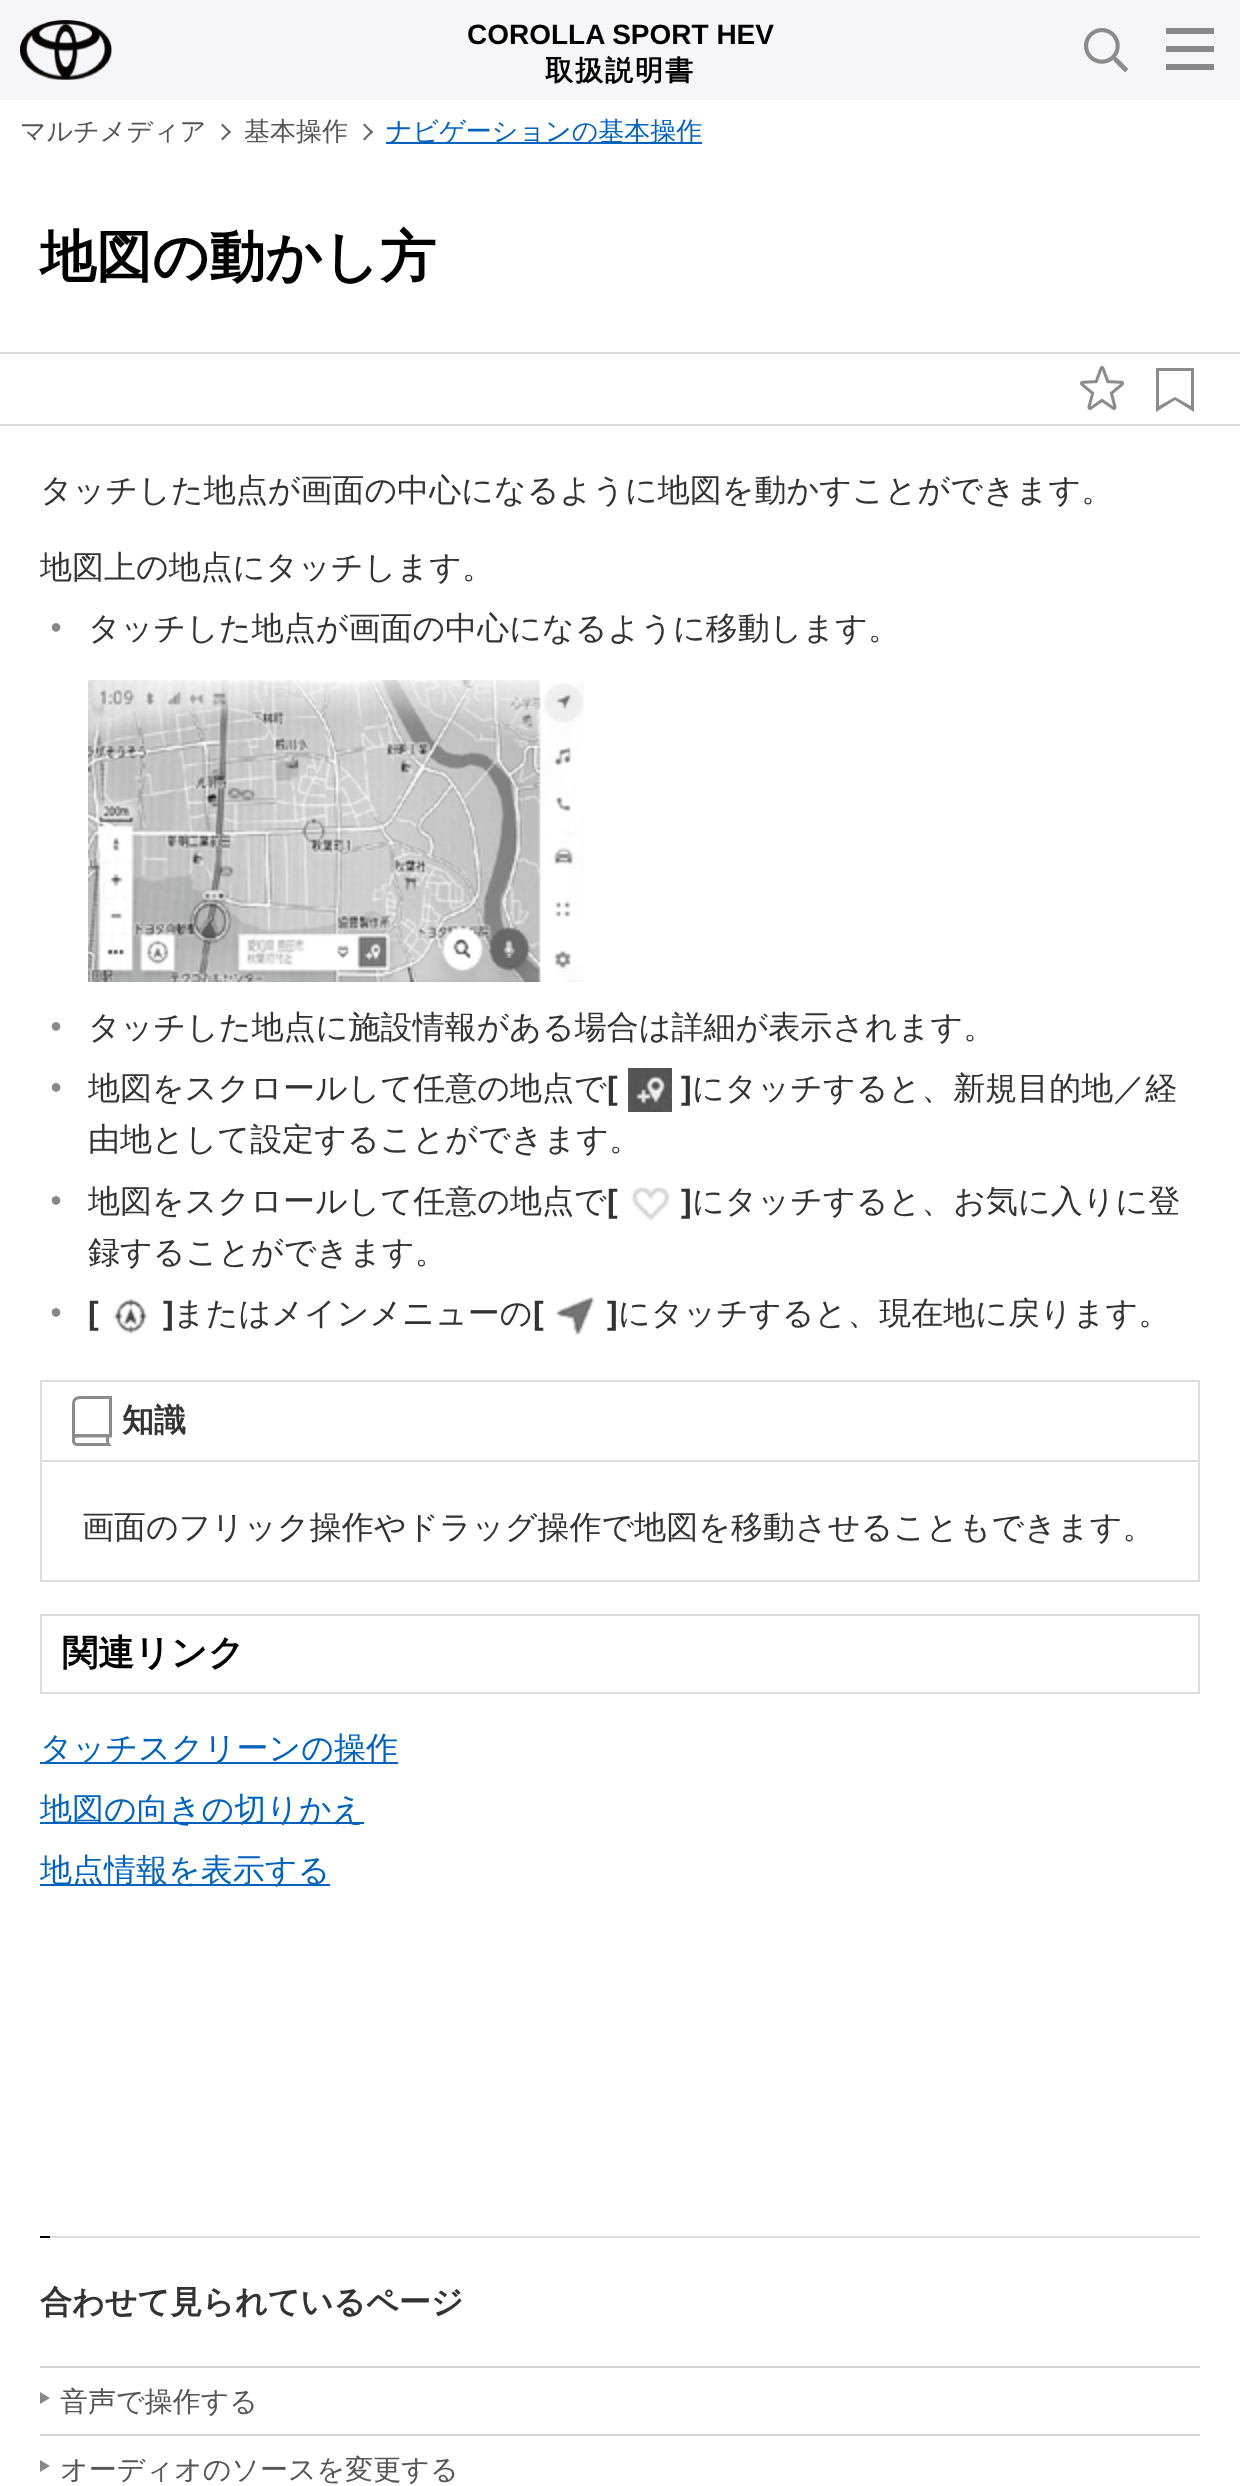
<?xml version="1.0" encoding="UTF-8"?>
<svg xmlns="http://www.w3.org/2000/svg" width="1240" height="2486">
    <rect width="100%" height="100%" fill="#FFFFFF"/>
    <rect x="0" y="0" width="1240" height="100" fill="#F6F6FA"/>
    <image x="20" y="20" width="92" height="60" href="img_01.png"/>
    <text x="467" y="44" font-family="Liberation Sans" font-size="28" font-weight="700" fill="#000000">COROLLA SPORT HEV</text>
    <text x="545" y="80" font-family="WenQuanYi Zen Hei" font-size="28" font-weight="700" letter-spacing="2" fill="#000000">取扱説明書</text>
    <image x="1084" y="28" width="44" height="44" href="img_02.png"/>
    <rect x="1166" y="28" width="48" height="6" fill="#888888"/>
    <rect x="1166" y="46" width="48" height="6" fill="#888888"/>
    <rect x="1166" y="64" width="48" height="6" fill="#888888"/>
    <text x="20" y="140" font-family="WenQuanYi Zen Hei" font-size="26" font-weight="500" fill="#555555">マルチメディア</text>
    <path d="M 222.5 123.5 L 231 132 L 229.5 133.5 L 221 125 Z" fill="#666666"/>
    <path d="M 229.5 130.5 L 231 132 L 222.5 140.5 L 221 139 Z" fill="#666666"/>
    <text x="244" y="140" font-family="WenQuanYi Zen Hei" font-size="26" font-weight="500" fill="#555555">基本操作</text>
    <path d="M 364.5 123.5 L 373 132 L 371.5 133.5 L 363 125 Z" fill="#666666"/>
    <path d="M 371.5 130.5 L 373 132 L 364.5 140.5 L 363 139 Z" fill="#666666"/>
    <rect x="386" y="142" width="316" height="2" fill="#0062BA"/>
    <text x="386" y="140" font-family="WenQuanYi Zen Hei" font-size="26" font-weight="500" fill="#0062BA">ナビゲーションの基本操作</text>
    <text x="40" y="276" font-family="WenQuanYi Zen Hei" font-size="56" font-weight="700" fill="#000000">地図の動かし方</text>
    <rect x="0" y="352" width="1240" height="2" fill="#DDDDDD"/>
    <rect x="0" y="424" width="1240" height="2" fill="#DDDDDD"/>
    <image x="1080" y="366" width="44" height="44" href="img_03.png"/>
    <path d="M 1191 371 V 406 L 1175 397 L 1159 406 V 371 H 1191 M 1194 368 H 1156 V 412 L 1175 400 L 1194 412 Z" fill="#8B8B8B"/>
    <text x="40" y="501" font-family="WenQuanYi Zen Hei" font-size="32" font-weight="500" fill="#333333">タッチした地点が画面の中心になるように地図を動かすことができます。</text>
    <text x="40" y="578" font-family="WenQuanYi Zen Hei" font-size="32" font-weight="500" fill="#333333">地図上の地点にタッチします。</text>
    <text x="50" y="633" font-family="Liberation Sans" font-size="20" fill="#888888">●</text>
    <text x="88" y="639" font-family="WenQuanYi Zen Hei" font-size="32" font-weight="500" fill="#333333">タッチした地点が画面の中心になるように移動します。</text>
    <image x="88" y="680" width="496" height="302" href="img_04.png"/>
    <text x="50" y="1032" font-family="Liberation Sans" font-size="20" fill="#888888">●</text>
    <text x="88" y="1038" font-family="WenQuanYi Zen Hei" font-size="32" font-weight="500" fill="#333333">タッチした地点に施設情報がある場合は詳細が表示されます。</text>
    <text x="50" y="1093" font-family="Liberation Sans" font-size="20" fill="#888888">●</text>
    <text x="88" y="1099" font-family="WenQuanYi Zen Hei" font-size="32" font-weight="500" fill="#333333">地図をスクロールして任意の地点で</text>
    <text x="607" y="1099" font-family="Liberation Sans" font-size="32" font-weight="700" fill="#333333">[‍</text>
    <image x="628" y="1068" width="44" height="44" href="img_05.png"/>
    <text x="681" y="1099" font-family="Liberation Sans" font-size="32" font-weight="700" fill="#333333">‍]</text>
    <text x="692" y="1099" font-family="WenQuanYi Zen Hei" font-size="32" font-weight="500" fill="#333333">にタッチすると、新規目的地／経</text>
    <text x="88" y="1150" font-family="WenQuanYi Zen Hei" font-size="32" font-weight="500" fill="#333333">由地として設定することができます。</text>
    <text x="50" y="1206" font-family="Liberation Sans" font-size="20" fill="#888888">●</text>
    <text x="88" y="1212" font-family="WenQuanYi Zen Hei" font-size="32" font-weight="500" fill="#333333">地図をスクロールして任意の地点で</text>
    <text x="607" y="1212" font-family="Liberation Sans" font-size="32" font-weight="700" fill="#333333">[‍</text>
    <image x="631" y="1187" width="39" height="34" href="img_06.png"/>
    <text x="681" y="1212" font-family="Liberation Sans" font-size="32" font-weight="700" fill="#333333">‍]</text>
    <text x="692" y="1212" font-family="WenQuanYi Zen Hei" font-size="32" font-weight="500" fill="#333333">にタッチすると、お気に入りに登</text>
    <text x="88" y="1263" font-family="WenQuanYi Zen Hei" font-size="32" font-weight="500" fill="#333333">録することができます。</text>
    <text x="50" y="1318" font-family="Liberation Sans" font-size="20" fill="#888888">●</text>
    <text x="88" y="1324" font-family="Liberation Sans" font-size="32" font-weight="700" fill="#333333">[‍</text>
    <image x="113" y="1298" width="34" height="37" href="img_07.png"/>
    <text x="163" y="1324" font-family="Liberation Sans" font-size="32" font-weight="700" fill="#333333">‍]</text>
    <text x="173" y="1324" font-family="WenQuanYi Zen Hei" font-size="32" font-weight="500" fill="#333333">またはメインメニューの</text>
    <text x="533" y="1324" font-family="Liberation Sans" font-size="32" font-weight="700" fill="#333333">[‍</text>
    <image x="555" y="1297" width="40" height="38" href="img_08.png"/>
    <text x="607" y="1324" font-family="Liberation Sans" font-size="32" font-weight="700" fill="#333333">‍]</text>
    <text x="618" y="1324" font-family="WenQuanYi Zen Hei" font-size="32" font-weight="500" fill="#333333">にタッチすると、現在地に戻ります。</text>
    <rect x="1198" y="1380" width="2" height="202" fill="#DDDDDD"/>
    <rect x="40" y="1580" width="1160" height="2" fill="#DDDDDD"/>
    <rect x="40" y="1380" width="2" height="202" fill="#DDDDDD"/>
    <image x="72" y="1396" width="40" height="50" href="img_09.png"/>
    <rect x="42" y="1380" width="1156" height="2" fill="#DDDDDD"/>
    <rect x="42" y="1460" width="1156" height="2" fill="#DDDDDD"/>
    <text x="122" y="1431" font-family="WenQuanYi Zen Hei" font-size="32" font-weight="700" fill="#333333">知識</text>
    <text x="82" y="1538" font-family="WenQuanYi Zen Hei" font-size="32" font-weight="500" fill="#333333">画面のフリック操作やドラッグ操作で地図を移動させることもできます。</text>
    <rect x="41" y="1615" width="1158" height="78" fill="none" stroke="#DDDDDD" stroke-width="2"/>
    <text x="62" y="1665" font-family="WenQuanYi Zen Hei" font-size="36" font-weight="700" fill="#000000">関連リンク</text>
    <rect x="40" y="1762" width="358" height="2" fill="#0062BA"/>
    <text x="40" y="1759" font-family="WenQuanYi Zen Hei" font-size="32" font-weight="500" fill="#0062BA">タッチスクリーンの操作</text>
    <rect x="40" y="1822" width="324" height="2" fill="#0062BA"/>
    <text x="40" y="1820" font-family="WenQuanYi Zen Hei" font-size="32" font-weight="500" fill="#0062BA">地図の向きの切りかえ</text>
    <rect x="40" y="1884" width="290" height="2" fill="#0062BA"/>
    <text x="40" y="1881" font-family="WenQuanYi Zen Hei" font-size="32" font-weight="500" fill="#0062BA">地点情報を表示する</text>
    <rect x="50" y="2236" width="1150" height="2" fill="#DDDDDD"/>
    <rect x="40" y="2236" width="10" height="2" fill="#000000"/>
    <text x="40" y="2313" font-family="WenQuanYi Zen Hei" font-size="32" font-weight="700" fill="#333333">合わせて見られているページ</text>
    <rect x="40" y="2366" width="1160" height="2" fill="#D3D3D3"/>
    <path d="M 40 2404 V 2392 L 50 2398 Z" fill="#888888"/>
    <text x="60" y="2411" font-family="WenQuanYi Zen Hei" font-size="28" font-weight="500" fill="#555555">音声で操作する</text>
    <rect x="40" y="2434" width="1160" height="2" fill="#D3D3D3"/>
    <path d="M 40 2472 V 2460 L 50 2466 Z" fill="#888888"/>
    <text x="60" y="2479" font-family="WenQuanYi Zen Hei" font-size="28" font-weight="500" fill="#555555">オーディオのソースを変更する</text>
</svg>
